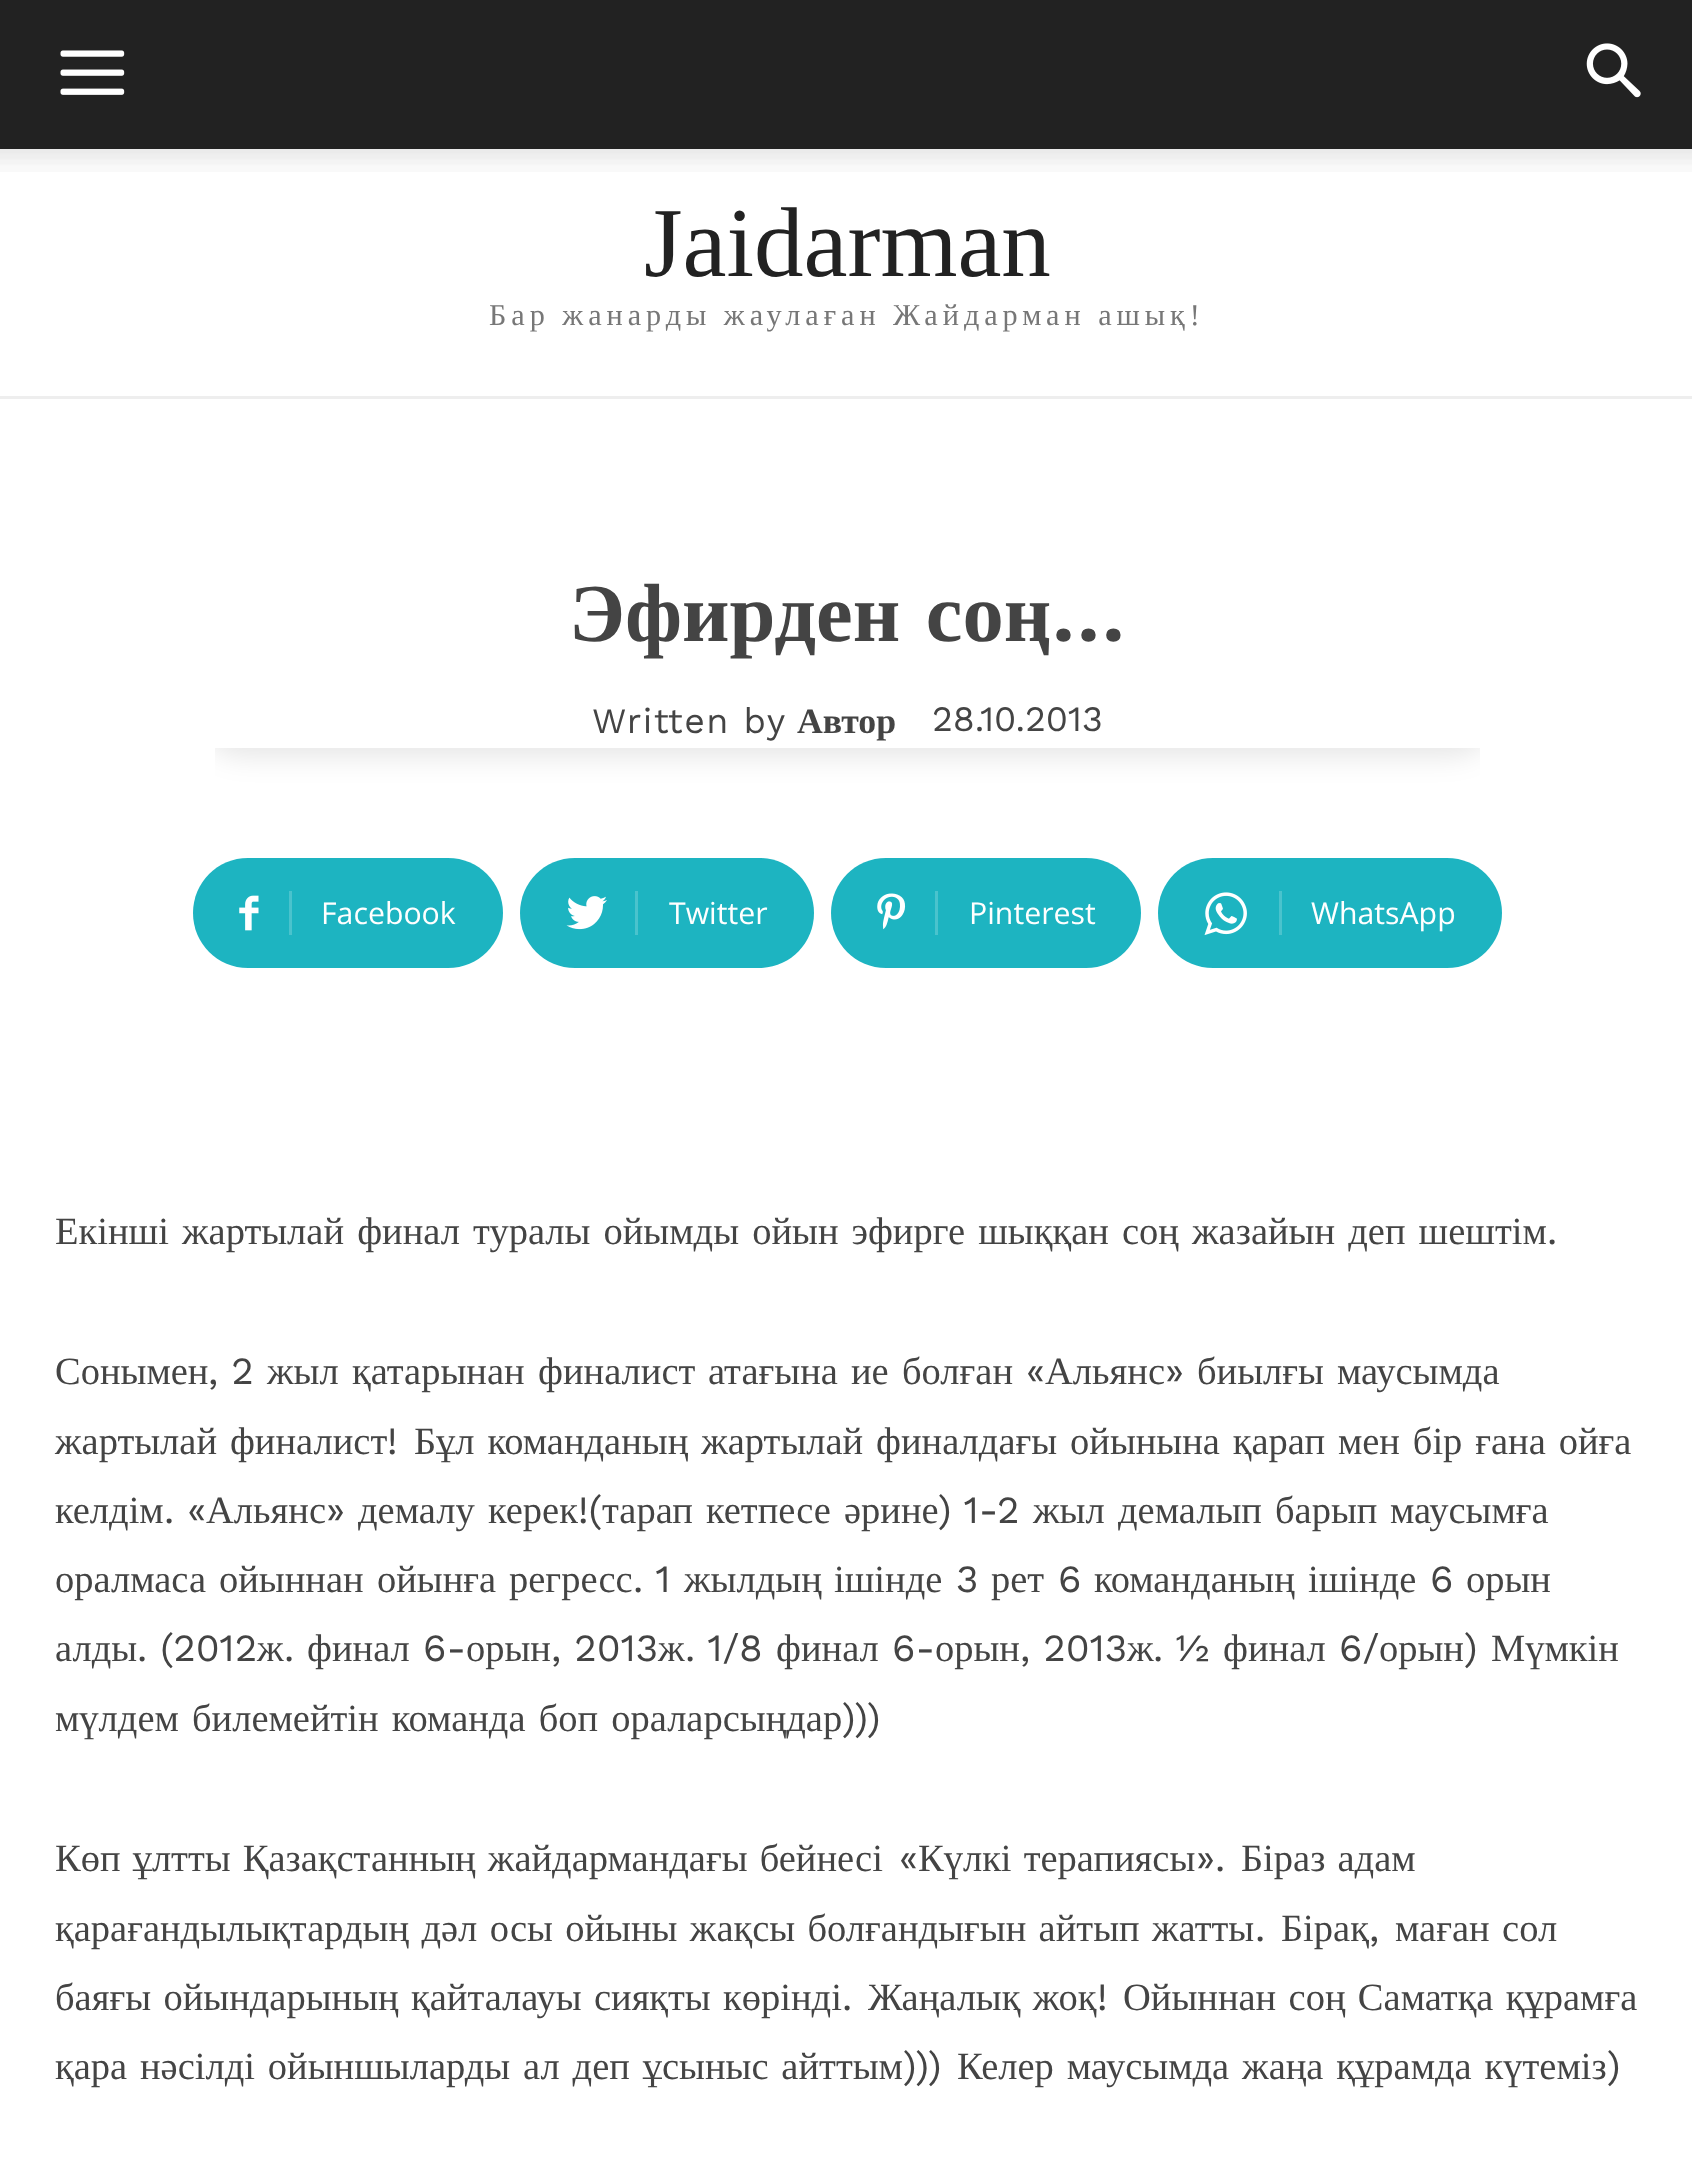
<?xml version="1.0" encoding="UTF-8"?>
<svg xmlns="http://www.w3.org/2000/svg" width="1692" height="2159">
    <defs>
        <clipPath id="clip1"><rect x="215" y="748" width="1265" height="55"/></clipPath>
        <filter id="blur1" x="-50%" y="-200%" width="200%" height="500%"><feGaussianBlur stdDeviation="14"/></filter>
    </defs>
    <rect width="100%" height="100%" fill="#FFFFFF"/>
    <rect x="0" y="0" width="1692" height="149" fill="#222222"/>
    <image x="60" y="50" width="65" height="45" href="img_01.png"/>
    <image x="1586" y="43" width="55" height="55" href="img_02.png"/>
    <image x="0" y="149" width="1692" height="23" href="img_03.png"/>
    <rect x="0" y="396" width="1692" height="3" fill="#EEEEEE"/>
    <text x="644" y="276" font-family="Liberation Serif" font-size="99" fill="#222222">Jaidarman</text>
    <text x="489" y="325" font-family="Liberation Serif" font-size="30.25" letter-spacing="4.95" fill="#777777">Бар жанарды жаулаған Жайдарман ашық!</text>
    <text x="569" y="641" word-spacing="5" font-family="Liberation Serif" font-size="82.5" font-weight="700" fill="#444444">Эфирден соң</text>
    <text x="1051" y="641" font-family="Work Sans" font-size="82.5" font-weight="600" fill="#444444">…</text>
    <g clip-path="url(#clip1)">
        <rect x="198" y="666" width="1298" height="90" rx="45" fill="#000000" fill-opacity="0.1" filter="url(#blur1)"/>
    </g>
    <text x="592" y="733" font-family="Work Sans" font-size="35.75" letter-spacing="1.4" fill="#444444">Written by</text>
    <text x="797" y="733" font-family="Liberation Serif" font-size="35.75" font-weight="700" fill="#444444">Автор</text>
    <text x="932" y="731" font-family="Work Sans" font-size="35.75" fill="#444444">28.10.2013</text>
    <path d="M 289 858 H 448 C 478.5 858 503 882.5 503 913 C 503 943.5 478.5 968 448 968 H 289 Z" fill="#1DB4C1"/>
    <path d="M 248 858 H 305 V 968 H 248 C 217.5 968 193 943.5 193 913 C 193 882.5 217.5 858 248 858 Z" fill="#1DB4C1"/>
    <image x="239" y="895" width="20" height="36" href="img_04.png"/>
    <rect x="289" y="891" width="3" height="44" fill="#4AC3CD"/>
    <text x="321" y="924" font-family="Open Sans" font-size="30.25" fill="#FFFFFF">Facebook</text>
    <path d="M 635 858 H 759 C 789.5 858 814 882.5 814 913 C 814 943.5 789.5 968 759 968 H 635 Z" fill="#1DB4C1"/>
    <path d="M 575 858 H 652 V 968 H 575 C 544.5 968 520 943.5 520 913 C 520 882.5 544.5 858 575 858 Z" fill="#1DB4C1"/>
    <image x="566" y="896" width="41" height="34" href="img_05.png"/>
    <rect x="635" y="891" width="3" height="44" fill="#4AC3CD"/>
    <text x="669" y="924" font-family="Open Sans" font-size="30.25" fill="#FFFFFF">Twitter</text>
    <path d="M 935 858 H 1086 C 1116.5 858 1141 882.5 1141 913 C 1141 943.5 1116.5 968 1086 968 H 935 Z" fill="#1DB4C1"/>
    <path d="M 886 858 H 952 V 968 H 886 C 855.5 968 831 943.5 831 913 C 831 882.5 855.5 858 886 858 Z" fill="#1DB4C1"/>
    <image x="877" y="893" width="29" height="37" href="img_06.png"/>
    <rect x="935" y="891" width="3" height="44" fill="#4AC3CD"/>
    <text x="969" y="924" font-family="Open Sans" font-size="30.25" fill="#FFFFFF">Pinterest</text>
    <path d="M 1279 858 H 1447 C 1477.5 858 1502 882.5 1502 913 C 1502 943.5 1477.5 968 1447 968 H 1279 Z" fill="#1DB4C1"/>
    <path d="M 1213 858 H 1295 V 968 H 1213 C 1182.5 968 1158 943.5 1158 913 C 1158 882.5 1182.5 858 1213 858 Z" fill="#1DB4C1"/>
    <image x="1204" y="892" width="43" height="44" href="img_07.png"/>
    <rect x="1279" y="891" width="3" height="44" fill="#4AC3CD"/>
    <text x="1311" y="924" font-family="Open Sans" font-size="30.25" fill="#FFFFFF">WhatsApp</text>
    <text x="55" y="1244" word-spacing="3.5" font-family="Liberation Serif" font-size="38.5" fill="#444444">Екінші жартылай финал туралы ойымды ойын эфирге шыққан соң жазайын деп шештім</text>
    <text x="1547" y="1244" font-family="Work Sans" font-size="38.5" fill="#444444">.</text>
    <text x="55" y="1384" font-family="Liberation Serif" font-size="38.5" fill="#444444">Сонымен</text>
    <text x="208" y="1384" font-family="Work Sans" font-size="38.5" fill="#444444">, 2</text>
    <text x="267" y="1384" font-family="Liberation Serif" font-size="38.5" fill="#444444">жыл</text>
    <text x="352" y="1384" font-family="Liberation Serif" font-size="38.5" fill="#444444">қатарынан</text>
    <text x="538" y="1384" font-family="Liberation Serif" font-size="38.5" fill="#444444">финалист</text>
    <text x="708" y="1384" font-family="Liberation Serif" font-size="38.5" fill="#444444">атағына</text>
    <text x="851" y="1384" font-family="Liberation Serif" font-size="38.5" fill="#444444">ие</text>
    <text x="902" y="1384" font-family="Liberation Serif" font-size="38.5" fill="#444444">болған</text>
    <text x="1026" y="1384" font-family="Work Sans" font-size="38.5" fill="#444444">«</text>
    <text x="1045" y="1384" font-family="Liberation Serif" font-size="38.5" fill="#444444">Альянс</text>
    <text x="1165" y="1384" font-family="Work Sans" font-size="38.5" fill="#444444">»</text>
    <text x="1197" y="1384" font-family="Liberation Serif" font-size="38.5" fill="#444444">биылғы</text>
    <text x="1337" y="1384" font-family="Liberation Serif" font-size="38.5" fill="#444444">маусымда</text>
    <text x="55" y="1454" word-spacing="3.25" font-family="Liberation Serif" font-size="38.5" fill="#444444">жартылай финалист</text>
    <text x="387" y="1454" font-family="Work Sans" font-size="38.5" fill="#444444">!</text>
    <text x="414" y="1454" word-spacing="3.25" font-family="Liberation Serif" font-size="38.5" fill="#444444">Бұл команданың жартылай финалдағы ойынына қарап мен бір ғана ойға</text>
    <text x="55" y="1523" font-family="Liberation Serif" font-size="38.5" fill="#444444">келдім</text>
    <text x="164" y="1523" font-family="Work Sans" font-size="38.5" fill="#444444">. «</text>
    <text x="206" y="1523" font-family="Liberation Serif" font-size="38.5" fill="#444444">Альянс</text>
    <text x="326" y="1523" font-family="Work Sans" font-size="38.5" fill="#444444">»</text>
    <text x="358" y="1523" font-family="Liberation Serif" font-size="38.5" fill="#444444">демалу</text>
    <text x="488" y="1523" font-family="Liberation Serif" font-size="38.5" fill="#444444">керек</text>
    <text x="578" y="1523" font-family="Work Sans" font-size="38.5" fill="#444444">!(</text>
    <text x="602" y="1523" font-family="Liberation Serif" font-size="38.5" fill="#444444">тарап</text>
    <text x="706" y="1523" font-family="Liberation Serif" font-size="38.5" fill="#444444">кетпесе</text>
    <text x="844" y="1523" font-family="Liberation Serif" font-size="38.5" fill="#444444">әрине</text>
    <text x="938" y="1523" font-family="Work Sans" font-size="38.5" fill="#444444">) 1-2</text>
    <text x="1033" y="1523" font-family="Liberation Serif" font-size="38.5" fill="#444444">жыл</text>
    <text x="1118" y="1523" font-family="Liberation Serif" font-size="38.5" fill="#444444">демалып</text>
    <text x="1275" y="1523" font-family="Liberation Serif" font-size="38.5" fill="#444444">барып</text>
    <text x="1390" y="1523" font-family="Liberation Serif" font-size="38.5" fill="#444444">маусымға</text>
    <text x="55" y="1592" font-family="Liberation Serif" font-size="38.5" fill="#444444">оралмаса</text>
    <text x="219" y="1592" font-family="Liberation Serif" font-size="38.5" fill="#444444">ойыннан</text>
    <text x="377" y="1592" font-family="Liberation Serif" font-size="38.5" fill="#444444">ойынға</text>
    <text x="509" y="1592" font-family="Liberation Serif" font-size="38.5" fill="#444444">регресс</text>
    <text x="633" y="1592" font-family="Work Sans" font-size="38.5" fill="#444444">. 1</text>
    <text x="684" y="1592" font-family="Liberation Serif" font-size="38.5" fill="#444444">жылдың</text>
    <text x="834" y="1592" font-family="Liberation Serif" font-size="38.5" fill="#444444">ішінде</text>
    <text x="956" y="1592" font-family="Work Sans" font-size="38.5" fill="#444444">3</text>
    <text x="991" y="1592" font-family="Liberation Serif" font-size="38.5" fill="#444444">рет</text>
    <text x="1058" y="1592" font-family="Work Sans" font-size="38.5" fill="#444444">6</text>
    <text x="1094" y="1592" font-family="Liberation Serif" font-size="38.5" fill="#444444">команданың</text>
    <text x="1308" y="1592" font-family="Liberation Serif" font-size="38.5" fill="#444444">ішінде</text>
    <text x="1430" y="1592" font-family="Work Sans" font-size="38.5" fill="#444444">6</text>
    <text x="1466" y="1592" font-family="Liberation Serif" font-size="38.5" fill="#444444">орын</text>
    <text x="55" y="1661" font-family="Liberation Serif" font-size="38.5" fill="#444444">алды</text>
    <text x="137" y="1661" font-family="Work Sans" font-size="38.5" fill="#444444">. (2012</text>
    <text x="257" y="1661" font-family="Liberation Serif" font-size="38.5" fill="#444444">ж</text>
    <text x="284" y="1661" font-family="Work Sans" font-size="38.5" fill="#444444">.</text>
    <text x="307" y="1661" font-family="Liberation Serif" font-size="38.5" fill="#444444">финал</text>
    <text x="423" y="1661" font-family="Work Sans" font-size="38.5" fill="#444444">6-</text>
    <text x="466" y="1661" font-family="Liberation Serif" font-size="38.5" fill="#444444">орын</text>
    <text x="551" y="1661" font-family="Work Sans" font-size="38.5" fill="#444444">, 2013</text>
    <text x="658" y="1661" font-family="Liberation Serif" font-size="38.5" fill="#444444">ж</text>
    <text x="685" y="1661" font-family="Work Sans" font-size="38.5" fill="#444444">. 1/8</text>
    <text x="776" y="1661" font-family="Liberation Serif" font-size="38.5" fill="#444444">финал</text>
    <text x="892" y="1661" font-family="Work Sans" font-size="38.5" fill="#444444">6-</text>
    <text x="935" y="1661" font-family="Liberation Serif" font-size="38.5" fill="#444444">орын</text>
    <text x="1020" y="1661" font-family="Work Sans" font-size="38.5" fill="#444444">, 2013</text>
    <text x="1127" y="1661" font-family="Liberation Serif" font-size="38.5" fill="#444444">ж</text>
    <text x="1153" y="1661" font-family="Work Sans" font-size="38.5" fill="#444444">. ½</text>
    <text x="1223" y="1661" font-family="Liberation Serif" font-size="38.5" fill="#444444">финал</text>
    <text x="1339" y="1661" font-family="Work Sans" font-size="38.5" fill="#444444">6/</text>
    <text x="1379" y="1661" font-family="Liberation Serif" font-size="38.5" fill="#444444">орын</text>
    <text x="1464" y="1661" font-family="Work Sans" font-size="38.5" fill="#444444">)</text>
    <text x="1491" y="1661" font-family="Liberation Serif" font-size="38.5" fill="#444444">Мүмкін</text>
    <text x="55" y="1731" word-spacing="3.5" font-family="Liberation Serif" font-size="38.5" fill="#444444">мүлдем билемейтін команда боп ораларсыңдар</text>
    <text x="842" y="1731" font-family="Work Sans" font-size="38.5" fill="#444444">)))</text>
    <text x="55" y="1871" word-spacing="2.5" font-family="Liberation Serif" font-size="38.5" fill="#444444">Көп ұлтты Қазақстанның жайдармандағы бейнесі</text>
    <text x="899" y="1871" font-family="Work Sans" font-size="38.5" fill="#444444">«</text>
    <text x="918" y="1871" word-spacing="2.5" font-family="Liberation Serif" font-size="38.5" fill="#444444">Күлкі терапиясы</text>
    <text x="1196" y="1871" font-family="Work Sans" font-size="38.5" fill="#444444">».</text>
    <text x="1241" y="1871" word-spacing="2.5" font-family="Liberation Serif" font-size="38.5" fill="#444444">Біраз адам</text>
    <text x="55" y="1941" word-spacing="2.75" font-family="Liberation Serif" font-size="38.5" fill="#444444">қарағандылықтардың дәл осы ойыны жақсы болғандығын айтып жатты</text>
    <text x="1255" y="1941" font-family="Work Sans" font-size="38.5" fill="#444444">.</text>
    <text x="1281" y="1941" font-family="Liberation Serif" font-size="38.5" fill="#444444">Бірақ</text>
    <text x="1369" y="1941" font-family="Work Sans" font-size="38.5" fill="#444444">,</text>
    <text x="1395" y="1941" word-spacing="2.75" font-family="Liberation Serif" font-size="38.5" fill="#444444">маған сол</text>
    <text x="55" y="2010" word-spacing="2.75" font-family="Liberation Serif" font-size="38.5" fill="#444444">баяғы ойындарының қайталауы сияқты көрінді</text>
    <text x="842" y="2010" font-family="Work Sans" font-size="38.5" fill="#444444">.</text>
    <text x="868" y="2010" word-spacing="2.75" font-family="Liberation Serif" font-size="38.5" fill="#444444">Жаңалық жоқ</text>
    <text x="1097" y="2010" font-family="Work Sans" font-size="38.5" fill="#444444">!</text>
    <text x="1123" y="2010" word-spacing="2.75" font-family="Liberation Serif" font-size="38.5" fill="#444444">Ойыннан соң Саматқа құрамға</text>
    <text x="55" y="2079" word-spacing="3.25" font-family="Liberation Serif" font-size="38.5" fill="#444444">қара нәсілді ойыншыларды ал деп ұсыныс айттым</text>
    <text x="903" y="2079" font-family="Work Sans" font-size="38.5" fill="#444444">)))</text>
    <text x="957" y="2079" word-spacing="3.25" font-family="Liberation Serif" font-size="38.5" fill="#444444">Келер маусымда жаңа құрамда күтеміз</text>
    <text x="1607" y="2079" font-family="Work Sans" font-size="38.5" fill="#444444">)</text>
</svg>
